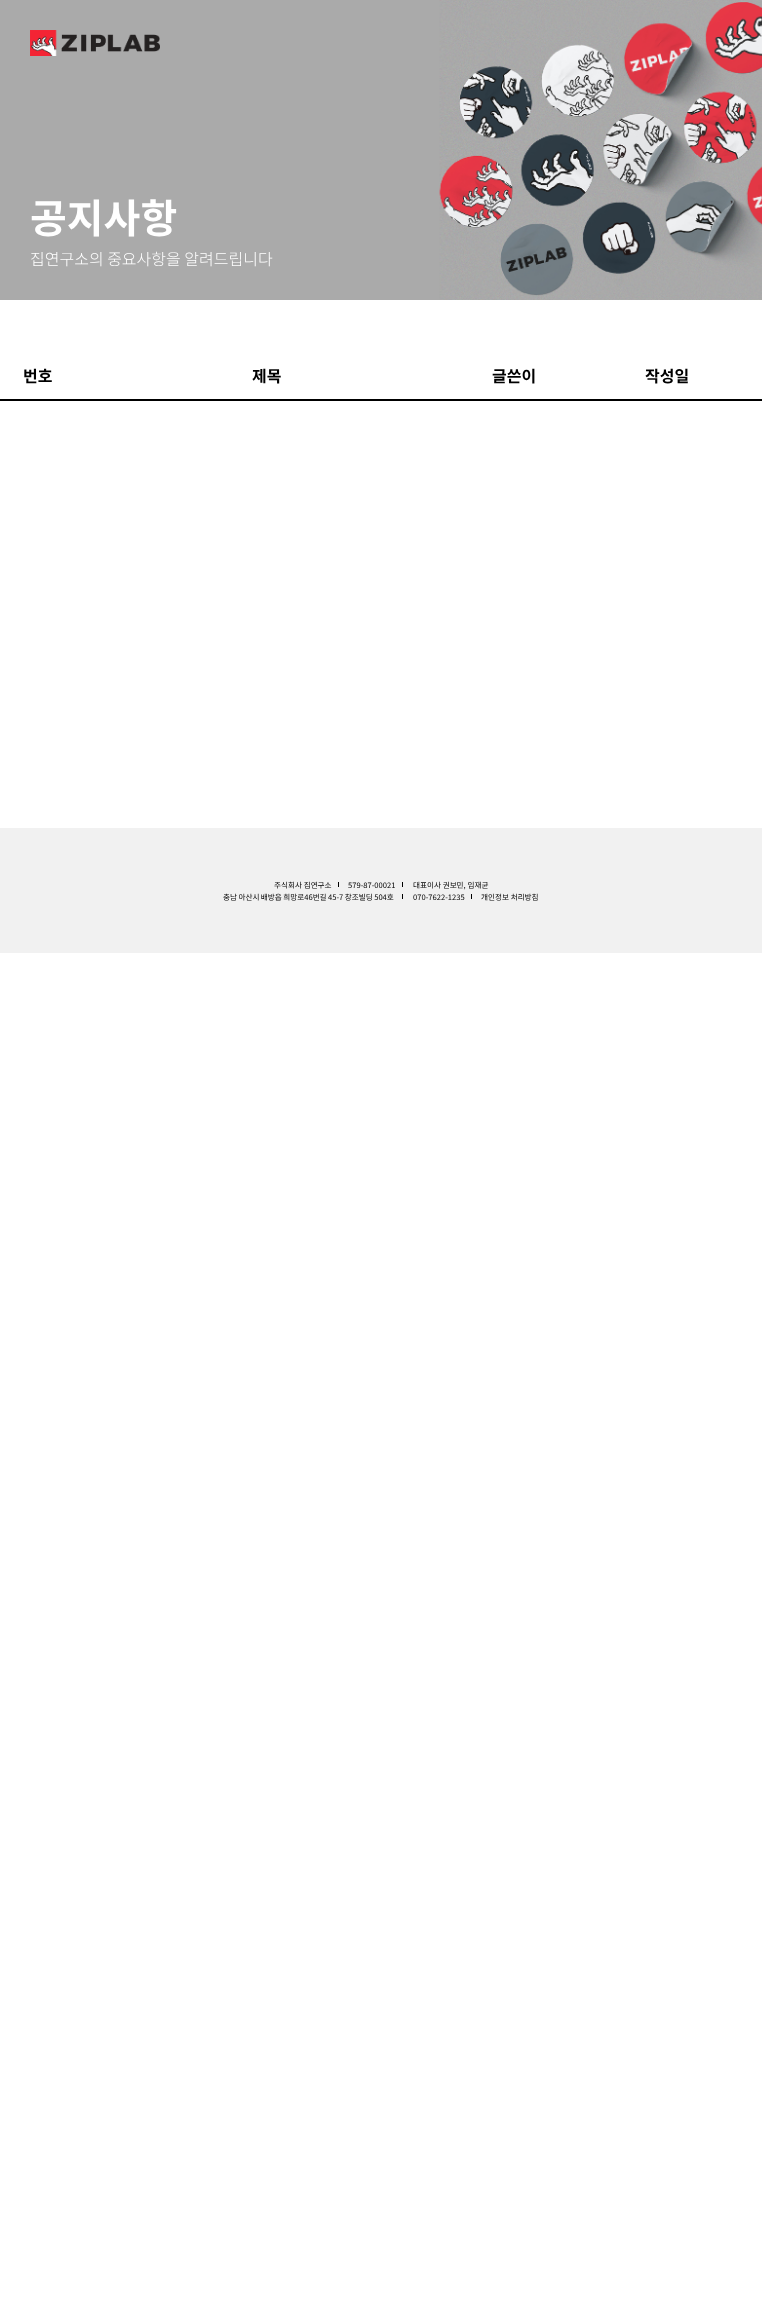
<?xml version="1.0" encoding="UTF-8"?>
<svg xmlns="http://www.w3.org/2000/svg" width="762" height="2298">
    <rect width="100%" height="100%" fill="#FFFFFF"/>
    <rect x="0" y="0" width="440" height="300" fill="#AAAAAA"/>
    <image x="30" y="30" width="130" height="26" href="img_01.png"/>
    <text x="30" y="233" font-family="Noto Sans CJK KR" font-size="40" font-weight="700" fill="#FFFFFF">공지사항</text>
    <text x="30" y="265" font-family="Noto Sans CJK KR" font-size="16" font-weight="300" fill="#FFFFFF">집연구소의 중요사항을 알려드립니다</text>
    <image x="439" y="0" width="323" height="300" href="img_02.png"/>
    <text x="23" y="382" font-family="Noto Sans CJK KR" font-size="16" font-weight="700" fill="#000000">번호</text>
    <text x="252" y="382" font-family="Noto Sans CJK KR" font-size="16" font-weight="700" fill="#000000">제목</text>
    <text x="492" y="382" font-family="Noto Sans CJK KR" font-size="16" font-weight="700" fill="#000000">글쓴이</text>
    <rect x="0" y="399" width="762" height="2" fill="#000000"/>
    <text x="645" y="382" font-family="Noto Sans CJK KR" font-size="16" font-weight="700" fill="#000000">작성일</text>
    <rect x="0" y="828" width="762" height="125" fill="#F1F1F1"/>
    <text x="274" y="888" font-family="Noto Sans KR" font-size="7.6" fill="#000000">주식회사 집연구소</text>
    <rect x="338" y="882" width="1" height="5" fill="#000000"/>
    <text x="348" y="888" font-family="Noto Sans KR" font-size="7.6" fill="#000000">579-87-00021</text>
    <rect x="402" y="882" width="1" height="5" fill="#000000"/>
    <text x="413" y="888" font-family="Noto Sans KR" font-size="7.6" fill="#000000">대표이사 권보민, 임재균</text>
    <text x="223" y="900" word-spacing="-0.25" font-family="Noto Sans KR" font-size="7.6" fill="#000000">충남 아산시 배방읍 희망로46번길 45-7 창조빌딩 504호</text>
    <rect x="402" y="894" width="1" height="5" fill="#000000"/>
    <text x="413" y="900" font-family="Noto Sans KR" font-size="7.6" fill="#000000">070-7622-1235</text>
    <rect x="471" y="894" width="1" height="5" fill="#000000"/>
    <text x="481" y="900" font-family="Noto Sans KR" font-size="7.6" fill="#000000">개인정보 처리방침</text>
</svg>
